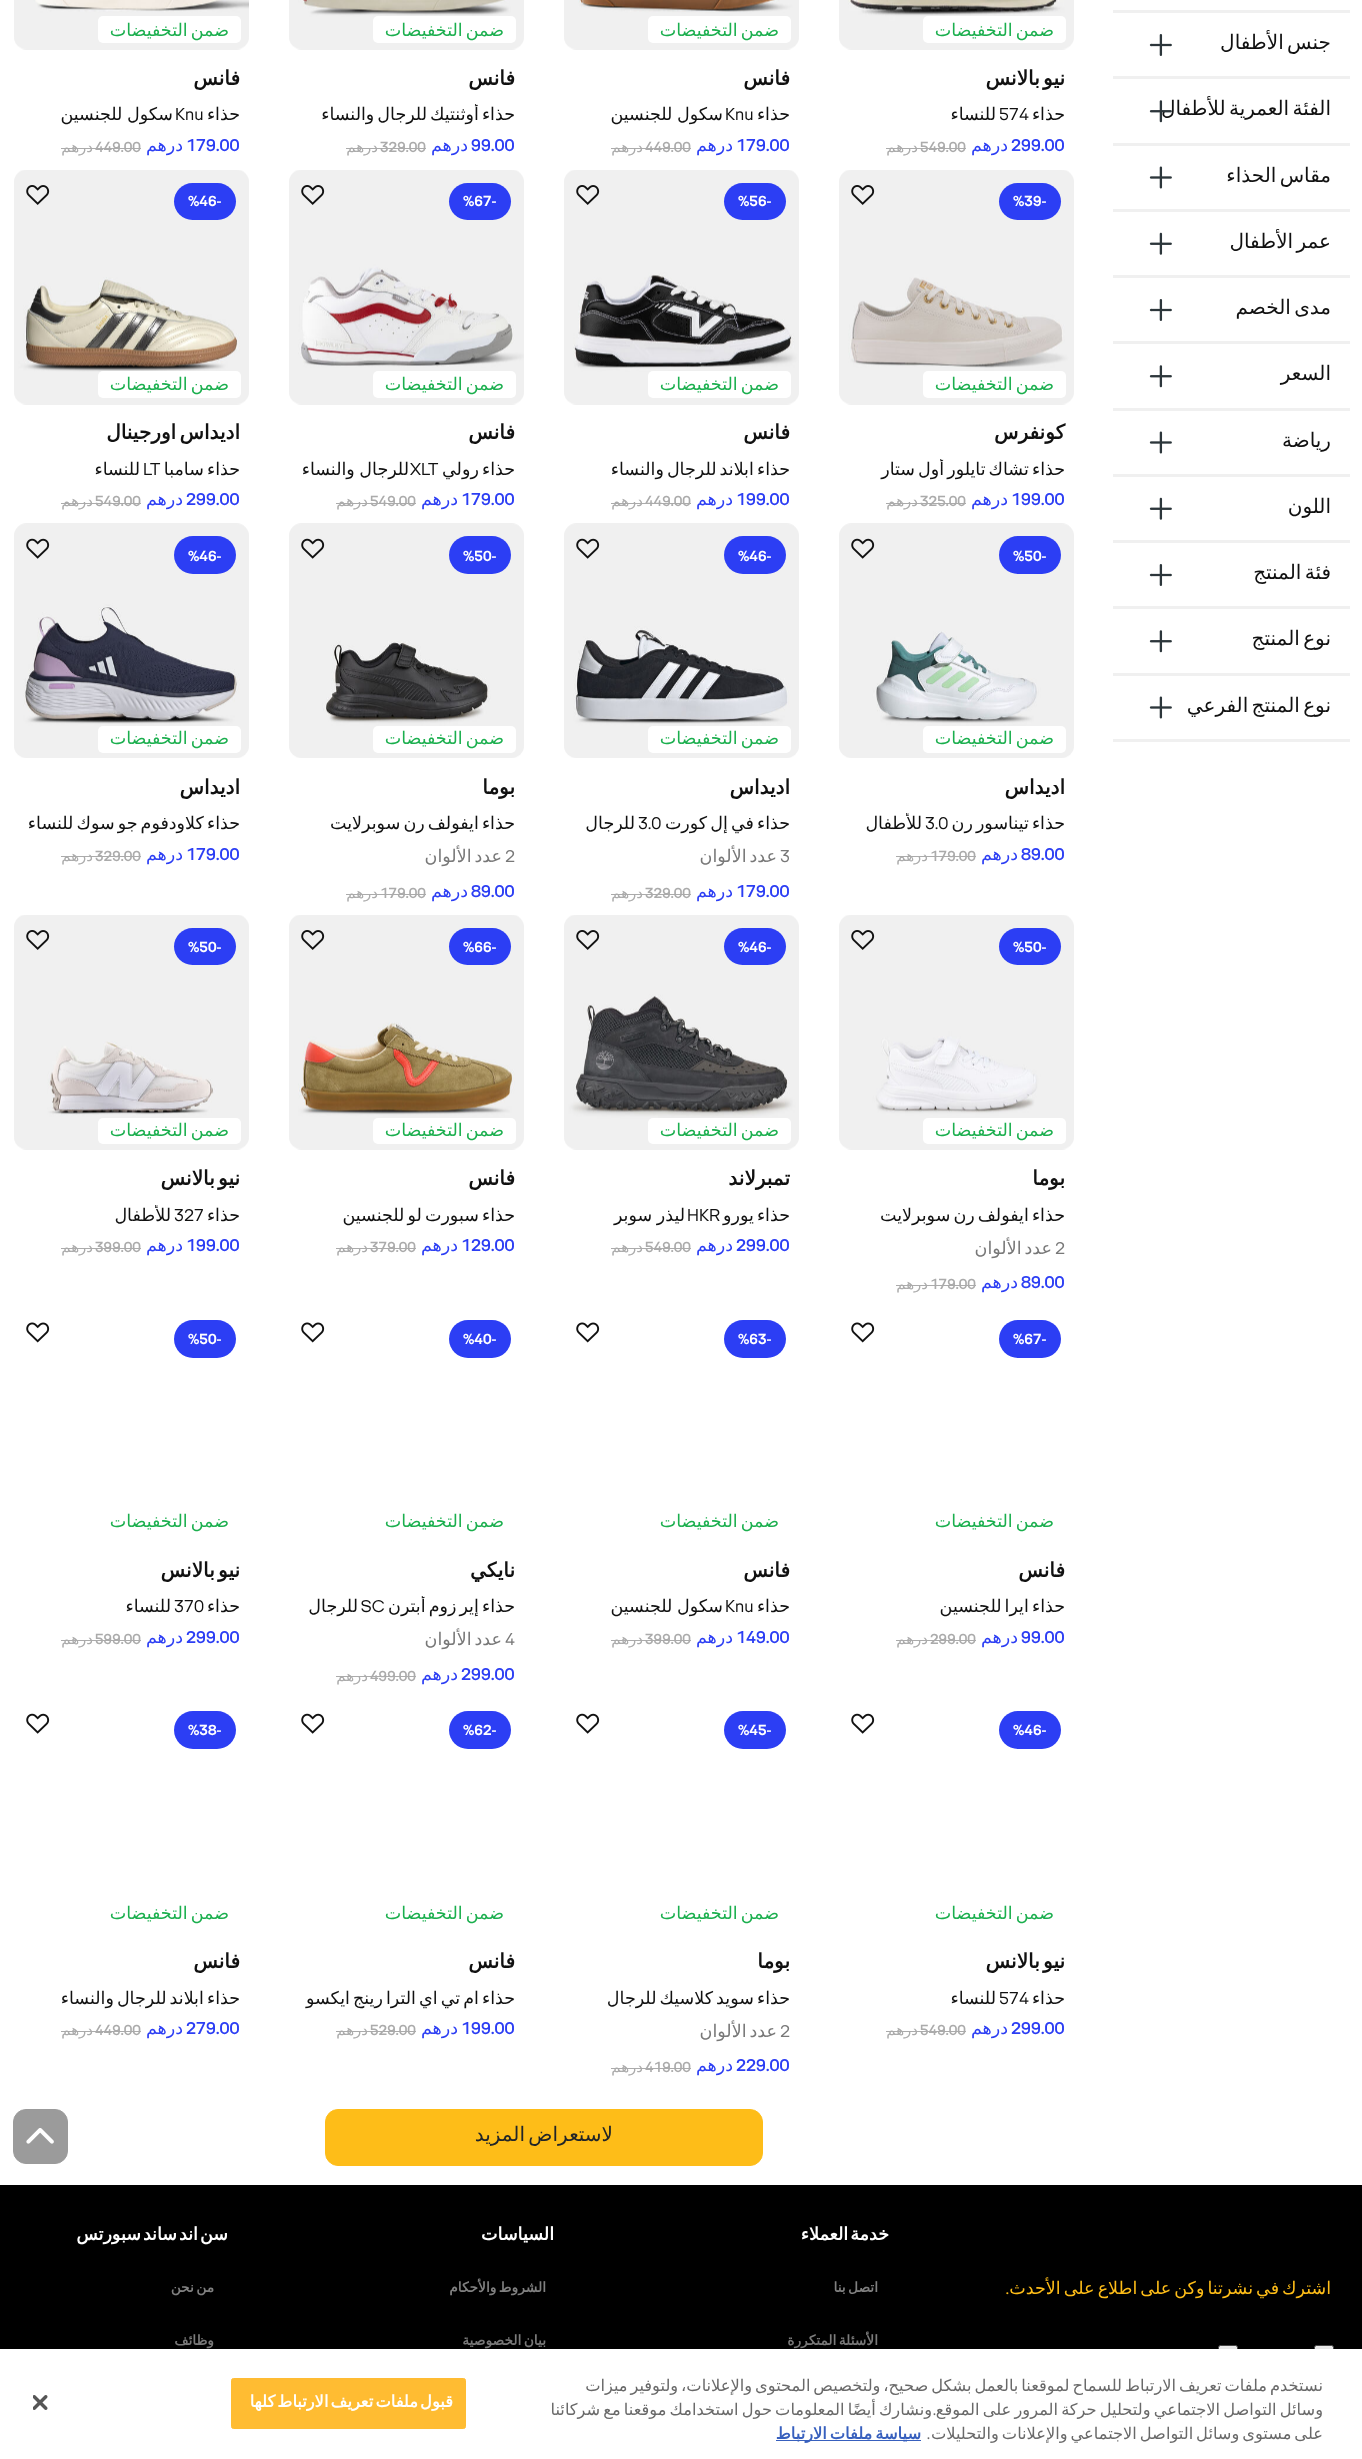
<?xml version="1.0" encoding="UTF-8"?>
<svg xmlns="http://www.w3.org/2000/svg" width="1362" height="2459">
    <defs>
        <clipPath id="clip1"><rect x="298" y="104" width="217" height="25"/></clipPath>
        <clipPath id="clip2"><rect x="848" y="459" width="217" height="24"/></clipPath>
        <clipPath id="clip3"><rect x="848" y="813" width="217" height="25"/></clipPath>
        <clipPath id="clip4"><rect x="23" y="1205" width="217" height="24"/></clipPath>
        <clipPath id="clip5"><rect x="298" y="1596" width="217" height="24"/></clipPath>
        <filter id="blur1" x="-50%" y="-200%" width="200%" height="500%"><feGaussianBlur stdDeviation="11"/></filter>
    </defs>
    <rect width="100%" height="100%" fill="#FFFFFF"/>
    <rect x="1113" y="10" width="237" height="3" fill="#F0F0F0"/>
    <rect x="1113" y="76" width="237" height="3" fill="#F0F0F0"/>
    <text x="1331" y="49" word-spacing="-3" font-family="DejaVu Sans" font-size="20" direction="rtl" fill="#111111">جنس الأطفال</text>
    <image x="1149" y="34" width="23" height="22" href="img_01.png"/>
    <rect x="1113" y="143" width="237" height="3" fill="#F0F0F0"/>
    <text x="1331" y="115" word-spacing="-3" font-family="DejaVu Sans" font-size="20" direction="rtl" fill="#111111">الفئة العمرية للأطفال</text>
    <image x="1149" y="100" width="23" height="23" href="img_02.png"/>
    <rect x="1113" y="209" width="237" height="3" fill="#F0F0F0"/>
    <text x="1331" y="182" word-spacing="-3" font-family="DejaVu Sans" font-size="20" direction="rtl" fill="#111111">مقاس الحذاء</text>
    <image x="1149" y="166" width="23" height="23" href="img_03.png"/>
    <rect x="1113" y="275" width="237" height="3" fill="#F0F0F0"/>
    <text x="1331" y="248" word-spacing="-3" font-family="DejaVu Sans" font-size="20" direction="rtl" fill="#111111">عمر الأطفال</text>
    <image x="1149" y="232" width="23" height="23" href="img_04.png"/>
    <rect x="1113" y="341" width="237" height="3" fill="#F0F0F0"/>
    <text x="1331" y="314" word-spacing="-3" font-family="DejaVu Sans" font-size="20" direction="rtl" fill="#111111">مدى الخصم</text>
    <image x="1149" y="299" width="23" height="22" href="img_01.png"/>
    <rect x="1113" y="408" width="237" height="3" fill="#F0F0F0"/>
    <text x="1331" y="380" font-family="DejaVu Sans" font-size="20" direction="rtl" fill="#111111">السعر</text>
    <image x="1149" y="365" width="23" height="23" href="img_05.png"/>
    <rect x="1113" y="474" width="237" height="3" fill="#F0F0F0"/>
    <text x="1331" y="447" font-family="DejaVu Sans" font-size="20" direction="rtl" fill="#111111">رياضة</text>
    <image x="1149" y="431" width="23" height="23" href="img_03.png"/>
    <rect x="1113" y="540" width="237" height="3" fill="#F0F0F0"/>
    <text x="1331" y="513" font-family="DejaVu Sans" font-size="20" direction="rtl" fill="#111111">اللون</text>
    <image x="1149" y="497" width="23" height="23" href="img_04.png"/>
    <rect x="1113" y="606" width="237" height="3" fill="#F0F0F0"/>
    <text x="1331" y="579" word-spacing="-3" font-family="DejaVu Sans" font-size="20" direction="rtl" fill="#111111">فئة المنتج</text>
    <image x="1149" y="564" width="23" height="22" href="img_01.png"/>
    <rect x="1113" y="673" width="237" height="3" fill="#F0F0F0"/>
    <text x="1331" y="645" word-spacing="-3" font-family="DejaVu Sans" font-size="20" direction="rtl" fill="#111111">نوع المنتج</text>
    <image x="1149" y="630" width="23" height="23" href="img_05.png"/>
    <rect x="1113" y="739" width="237" height="3" fill="#F0F0F0"/>
    <text x="1331" y="712" word-spacing="-3" font-family="DejaVu Sans" font-size="20" direction="rtl" fill="#111111">نوع المنتج الفرعي</text>
    <image x="1149" y="696" width="23" height="23" href="img_03.png"/>
    <image x="839" y="0" width="235" height="50" href="img_06.png"/>
    <rect x="923" y="16" width="143" height="27" rx="5" fill="#FFFFFF"/>
    <text x="1054" y="36" word-spacing="-2.5" font-family="DejaVu Sans" font-size="17.5" direction="rtl" fill="#1BAF4E">ضمن التخفيضات</text>
    <text x="1065" y="85" word-spacing="-3" font-family="DejaVu Sans" font-size="20" font-weight="700" direction="rtl" fill="#111111">نيو بالانس</text>
    <text x="1065" y="120" font-family="DejaVu Sans" font-size="17.5" direction="rtl" fill="#111111">حذاء</text>
    <text x="999" y="120" font-family="'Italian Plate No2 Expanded'" font-size="17.5" fill="#111111">574</text>
    <text x="996" y="120" font-family="DejaVu Sans" font-size="17.5" direction="rtl" fill="#111111">للنساء</text>
    <text x="1011" y="151" font-family="'Italian Plate No2 Expanded'" font-size="17.5" font-weight="600" fill="#2C3EF4">299.00</text>
    <text x="1008" y="151" font-family="DejaVu Sans" font-size="17.5" direction="rtl" fill="#2C3EF4">درهم</text>
    <text x="920" y="152" font-family="'Italian Plate No2 Expanded'" font-size="15" font-weight="600" fill="#ABABAB">549.00</text>
    <rect x="920" y="148" width="46" height="1" fill="#ABABAB"/>
    <text x="918" y="152" font-family="DejaVu Sans" font-size="15" direction="rtl" fill="#ABABAB">درهم</text>
    <rect x="886" y="148" width="34" height="1" fill="#ABABAB"/>
    <image x="564" y="0" width="235" height="50" href="img_07.png"/>
    <rect x="648" y="16" width="143" height="27" rx="5" fill="#FFFFFF"/>
    <text x="779" y="36" word-spacing="-2.5" font-family="DejaVu Sans" font-size="17.5" direction="rtl" fill="#1BAF4E">ضمن التخفيضات</text>
    <text x="790" y="85" font-family="DejaVu Sans" font-size="20" font-weight="700" direction="rtl" fill="#111111">فانس</text>
    <text x="790" y="120" font-family="DejaVu Sans" font-size="17.5" direction="rtl" fill="#111111">حذاء</text>
    <text x="725" y="120" font-family="'Italian Plate No2 Expanded'" font-size="17.5" fill="#111111">Knu</text>
    <text x="723" y="120" word-spacing="-1" font-family="DejaVu Sans" font-size="17.5" direction="rtl" fill="#111111">سكول للجنسين</text>
    <text x="736" y="151" font-family="'Italian Plate No2 Expanded'" font-size="17.5" font-weight="600" fill="#2C3EF4">179.00</text>
    <text x="733" y="151" font-family="DejaVu Sans" font-size="17.5" direction="rtl" fill="#2C3EF4">درهم</text>
    <text x="645" y="152" font-family="'Italian Plate No2 Expanded'" font-size="15" font-weight="600" fill="#ABABAB">449.00</text>
    <rect x="645" y="148" width="46" height="1" fill="#ABABAB"/>
    <text x="643" y="152" font-family="DejaVu Sans" font-size="15" direction="rtl" fill="#ABABAB">درهم</text>
    <rect x="611" y="148" width="34" height="1" fill="#ABABAB"/>
    <image x="289" y="0" width="235" height="50" href="img_08.png"/>
    <rect x="373" y="16" width="143" height="27" rx="5" fill="#FFFFFF"/>
    <text x="504" y="36" word-spacing="-2.5" font-family="DejaVu Sans" font-size="17.5" direction="rtl" fill="#1BAF4E">ضمن التخفيضات</text>
    <text x="515" y="85" font-family="DejaVu Sans" font-size="20" font-weight="700" direction="rtl" fill="#111111">فانس</text>
    <g clip-path="url(#clip1)">
        <text x="515" y="120" word-spacing="-2.5" font-family="DejaVu Sans" font-size="17.5" direction="rtl" fill="#111111">حذاء أوثنتيك للرجال والنساء</text>
    </g>
    <text x="471" y="151" font-family="'Italian Plate No2 Expanded'" font-size="17.5" font-weight="600" fill="#2C3EF4">99.00</text>
    <text x="468" y="151" font-family="DejaVu Sans" font-size="17.5" direction="rtl" fill="#2C3EF4">درهم</text>
    <text x="380" y="152" font-family="'Italian Plate No2 Expanded'" font-size="15" font-weight="600" fill="#ABABAB">329.00</text>
    <rect x="380" y="148" width="46" height="1" fill="#ABABAB"/>
    <text x="378" y="152" font-family="DejaVu Sans" font-size="15" direction="rtl" fill="#ABABAB">درهم</text>
    <rect x="346" y="148" width="34" height="1" fill="#ABABAB"/>
    <image x="14" y="0" width="235" height="50" href="img_09.png"/>
    <rect x="98" y="16" width="143" height="27" rx="5" fill="#FFFFFF"/>
    <text x="229" y="36" word-spacing="-2.5" font-family="DejaVu Sans" font-size="17.5" direction="rtl" fill="#1BAF4E">ضمن التخفيضات</text>
    <text x="240" y="85" font-family="DejaVu Sans" font-size="20" font-weight="700" direction="rtl" fill="#111111">فانس</text>
    <text x="240" y="120" font-family="DejaVu Sans" font-size="17.5" direction="rtl" fill="#111111">حذاء</text>
    <text x="175" y="120" font-family="'Italian Plate No2 Expanded'" font-size="17.5" fill="#111111">Knu</text>
    <text x="173" y="120" word-spacing="-1" font-family="DejaVu Sans" font-size="17.5" direction="rtl" fill="#111111">سكول للجنسين</text>
    <text x="186" y="151" font-family="'Italian Plate No2 Expanded'" font-size="17.5" font-weight="600" fill="#2C3EF4">179.00</text>
    <text x="183" y="151" font-family="DejaVu Sans" font-size="17.5" direction="rtl" fill="#2C3EF4">درهم</text>
    <text x="95" y="152" font-family="'Italian Plate No2 Expanded'" font-size="15" font-weight="600" fill="#ABABAB">449.00</text>
    <rect x="95" y="148" width="46" height="1" fill="#ABABAB"/>
    <text x="93" y="152" font-family="DejaVu Sans" font-size="15" direction="rtl" fill="#ABABAB">درهم</text>
    <rect x="61" y="148" width="34" height="1" fill="#ABABAB"/>
    <image x="839" y="170" width="235" height="235" href="img_10.png"/>
    <rect x="999" y="183" width="62" height="37" rx="18.5" fill="#2C3EF4"/>
    <text x="1013" y="206" font-family="'Italian Plate No2 Expanded'" font-size="15" font-weight="700" fill="#FFFFFF">%39-</text>
    <image x="851" y="185" width="24" height="20" href="img_11.png"/>
    <rect x="923" y="371" width="143" height="27" rx="5" fill="#FFFFFF"/>
    <text x="1054" y="390" word-spacing="-2.5" font-family="DejaVu Sans" font-size="17.5" direction="rtl" fill="#1BAF4E">ضمن التخفيضات</text>
    <text x="1065" y="439" font-family="DejaVu Sans" font-size="20" font-weight="700" direction="rtl" fill="#111111">كونفرس</text>
    <g clip-path="url(#clip2)">
        <text x="1065" y="475" word-spacing="-2.5" font-family="DejaVu Sans" font-size="17.5" direction="rtl" fill="#111111">حذاء تشاك تايلور أول ستار</text>
    </g>
    <text x="1011" y="505" font-family="'Italian Plate No2 Expanded'" font-size="17.5" font-weight="600" fill="#2C3EF4">199.00</text>
    <text x="1008" y="505" font-family="DejaVu Sans" font-size="17.5" direction="rtl" fill="#2C3EF4">درهم</text>
    <text x="920" y="506" font-family="'Italian Plate No2 Expanded'" font-size="15" font-weight="600" fill="#ABABAB">325.00</text>
    <text x="918" y="506" font-family="DejaVu Sans" font-size="15" direction="rtl" fill="#ABABAB">درهم</text>
    <rect x="886" y="503" width="34" height="1" fill="#ABABAB"/>
    <rect x="920" y="503" width="46" height="1" fill="#ABABAB"/>
    <image x="564" y="170" width="235" height="235" href="img_12.png"/>
    <rect x="724" y="183" width="62" height="37" rx="18.5" fill="#2C3EF4"/>
    <text x="738" y="206" font-family="'Italian Plate No2 Expanded'" font-size="15" font-weight="700" fill="#FFFFFF">%56-</text>
    <image x="576" y="185" width="24" height="20" href="img_11.png"/>
    <rect x="648" y="371" width="143" height="27" rx="5" fill="#FFFFFF"/>
    <text x="779" y="390" word-spacing="-2.5" font-family="DejaVu Sans" font-size="17.5" direction="rtl" fill="#1BAF4E">ضمن التخفيضات</text>
    <text x="790" y="439" font-family="DejaVu Sans" font-size="20" font-weight="700" direction="rtl" fill="#111111">فانس</text>
    <text x="790" y="475" word-spacing="-2.5" font-family="DejaVu Sans" font-size="17.5" direction="rtl" fill="#111111">حذاء ابلاند للرجال والنساء</text>
    <text x="736" y="505" font-family="'Italian Plate No2 Expanded'" font-size="17.5" font-weight="600" fill="#2C3EF4">199.00</text>
    <text x="733" y="505" font-family="DejaVu Sans" font-size="17.5" direction="rtl" fill="#2C3EF4">درهم</text>
    <text x="645" y="506" font-family="'Italian Plate No2 Expanded'" font-size="15" font-weight="600" fill="#ABABAB">449.00</text>
    <text x="643" y="506" font-family="DejaVu Sans" font-size="15" direction="rtl" fill="#ABABAB">درهم</text>
    <rect x="611" y="503" width="34" height="1" fill="#ABABAB"/>
    <rect x="645" y="503" width="46" height="1" fill="#ABABAB"/>
    <image x="289" y="170" width="235" height="235" href="img_13.png"/>
    <rect x="449" y="183" width="62" height="37" rx="18.5" fill="#2C3EF4"/>
    <text x="463" y="206" font-family="'Italian Plate No2 Expanded'" font-size="15" font-weight="700" fill="#FFFFFF">%67-</text>
    <image x="301" y="185" width="24" height="20" href="img_11.png"/>
    <rect x="373" y="371" width="143" height="27" rx="5" fill="#FFFFFF"/>
    <text x="504" y="390" word-spacing="-2.5" font-family="DejaVu Sans" font-size="17.5" direction="rtl" fill="#1BAF4E">ضمن التخفيضات</text>
    <text x="515" y="439" font-family="DejaVu Sans" font-size="20" font-weight="700" direction="rtl" fill="#111111">فانس</text>
    <text x="515" y="475" word-spacing="-2.5" font-family="DejaVu Sans" font-size="17.5" direction="rtl" fill="#111111">حذاء رولي</text>
    <text x="410" y="475" font-family="'Italian Plate No2 Expanded'" font-size="17.5" fill="#111111">XLT</text>
    <text x="409" y="475" word-spacing="-1" font-family="DejaVu Sans" font-size="17.5" direction="rtl" fill="#111111">للرجال والنساء</text>
    <text x="461" y="505" font-family="'Italian Plate No2 Expanded'" font-size="17.5" font-weight="600" fill="#2C3EF4">179.00</text>
    <text x="458" y="505" font-family="DejaVu Sans" font-size="17.5" direction="rtl" fill="#2C3EF4">درهم</text>
    <text x="370" y="506" font-family="'Italian Plate No2 Expanded'" font-size="15" font-weight="600" fill="#ABABAB">549.00</text>
    <text x="368" y="506" font-family="DejaVu Sans" font-size="15" direction="rtl" fill="#ABABAB">درهم</text>
    <rect x="336" y="503" width="34" height="1" fill="#ABABAB"/>
    <rect x="370" y="503" width="46" height="1" fill="#ABABAB"/>
    <image x="14" y="170" width="235" height="235" href="img_14.png"/>
    <rect x="174" y="183" width="62" height="37" rx="18.5" fill="#2C3EF4"/>
    <text x="188" y="206" font-family="'Italian Plate No2 Expanded'" font-size="15" font-weight="700" fill="#FFFFFF">%46-</text>
    <image x="26" y="185" width="24" height="20" href="img_11.png"/>
    <rect x="98" y="371" width="143" height="27" rx="5" fill="#FFFFFF"/>
    <text x="229" y="390" word-spacing="-2.5" font-family="DejaVu Sans" font-size="17.5" direction="rtl" fill="#1BAF4E">ضمن التخفيضات</text>
    <text x="240" y="439" word-spacing="-3" font-family="DejaVu Sans" font-size="20" font-weight="700" direction="rtl" fill="#111111">اديداس اورجينال</text>
    <text x="240" y="475" word-spacing="-2.5" font-family="DejaVu Sans" font-size="17.5" direction="rtl" fill="#111111">حذاء سامبا</text>
    <text x="143" y="475" font-family="'Italian Plate No2 Expanded'" font-size="17.5" fill="#111111">LT</text>
    <text x="140" y="475" font-family="DejaVu Sans" font-size="17.5" direction="rtl" fill="#111111">للنساء</text>
    <text x="186" y="505" font-family="'Italian Plate No2 Expanded'" font-size="17.5" font-weight="600" fill="#2C3EF4">299.00</text>
    <text x="183" y="505" font-family="DejaVu Sans" font-size="17.5" direction="rtl" fill="#2C3EF4">درهم</text>
    <text x="95" y="506" font-family="'Italian Plate No2 Expanded'" font-size="15" font-weight="600" fill="#ABABAB">549.00</text>
    <text x="93" y="506" font-family="DejaVu Sans" font-size="15" direction="rtl" fill="#ABABAB">درهم</text>
    <rect x="61" y="503" width="34" height="1" fill="#ABABAB"/>
    <rect x="95" y="503" width="46" height="1" fill="#ABABAB"/>
    <image x="839" y="523" width="235" height="235" href="img_15.png"/>
    <rect x="999" y="536" width="62" height="38" rx="19" fill="#2C3EF4"/>
    <text x="1013" y="561" font-family="'Italian Plate No2 Expanded'" font-size="15" font-weight="700" fill="#FFFFFF">%50-</text>
    <image x="851" y="538" width="24" height="21" href="img_16.png"/>
    <rect x="923" y="726" width="143" height="27" rx="5" fill="#FFFFFF"/>
    <text x="1054" y="744" word-spacing="-2.5" font-family="DejaVu Sans" font-size="17.5" direction="rtl" fill="#1BAF4E">ضمن التخفيضات</text>
    <text x="1065" y="794" font-family="DejaVu Sans" font-size="20" font-weight="700" direction="rtl" fill="#111111">اديداس</text>
    <text x="1065" y="829" word-spacing="-2.5" font-family="DejaVu Sans" font-size="17.5" direction="rtl" fill="#111111">حذاء تيناسور رن</text>
    <text x="925" y="829" font-family="'Italian Plate No2 Expanded'" font-size="17.5" fill="#111111">3.0</text>
    <g clip-path="url(#clip3)">
        <text x="922" y="829" font-family="DejaVu Sans" font-size="17.5" direction="rtl" fill="#111111">للأطفال</text>
    </g>
    <text x="1021" y="860" font-family="'Italian Plate No2 Expanded'" font-size="17.5" font-weight="600" fill="#2C3EF4">89.00</text>
    <text x="1018" y="860" font-family="DejaVu Sans" font-size="17.5" direction="rtl" fill="#2C3EF4">درهم</text>
    <text x="930" y="861" font-family="'Italian Plate No2 Expanded'" font-size="15" font-weight="600" fill="#ABABAB">179.00</text>
    <rect x="896" y="856" width="34" height="1" fill="#ABABAB"/>
    <rect x="930" y="856" width="46" height="1" fill="#ABABAB"/>
    <text x="928" y="861" font-family="DejaVu Sans" font-size="15" direction="rtl" fill="#ABABAB">درهم</text>
    <image x="564" y="523" width="235" height="235" href="img_17.png"/>
    <rect x="724" y="536" width="62" height="38" rx="19" fill="#2C3EF4"/>
    <text x="738" y="561" font-family="'Italian Plate No2 Expanded'" font-size="15" font-weight="700" fill="#FFFFFF">%46-</text>
    <image x="576" y="538" width="24" height="21" href="img_16.png"/>
    <rect x="648" y="726" width="143" height="27" rx="5" fill="#FFFFFF"/>
    <text x="779" y="744" word-spacing="-2.5" font-family="DejaVu Sans" font-size="17.5" direction="rtl" fill="#1BAF4E">ضمن التخفيضات</text>
    <text x="790" y="794" font-family="DejaVu Sans" font-size="20" font-weight="700" direction="rtl" fill="#111111">اديداس</text>
    <text x="790" y="829" word-spacing="-2.5" font-family="DejaVu Sans" font-size="17.5" direction="rtl" fill="#111111">حذاء في إل كورت</text>
    <text x="638" y="829" font-family="'Italian Plate No2 Expanded'" font-size="17.5" fill="#111111">3.0</text>
    <text x="635" y="829" font-family="DejaVu Sans" font-size="17.5" direction="rtl" fill="#111111">للرجال</text>
    <text x="780" y="862" font-family="'Italian Plate No2 Expanded'" font-size="17.5" fill="#787878">3</text>
    <text x="777" y="862" word-spacing="-2.5" font-family="DejaVu Sans" font-size="17.5" direction="rtl" fill="#787878">عدد الألوان</text>
    <text x="736" y="897" font-family="'Italian Plate No2 Expanded'" font-size="17.5" font-weight="600" fill="#2C3EF4">179.00</text>
    <text x="733" y="897" font-family="DejaVu Sans" font-size="17.5" direction="rtl" fill="#2C3EF4">درهم</text>
    <text x="645" y="898" font-family="'Italian Plate No2 Expanded'" font-size="15" font-weight="600" fill="#ABABAB">329.00</text>
    <rect x="645" y="894" width="46" height="1" fill="#ABABAB"/>
    <text x="643" y="898" font-family="DejaVu Sans" font-size="15" direction="rtl" fill="#ABABAB">درهم</text>
    <rect x="611" y="894" width="34" height="1" fill="#ABABAB"/>
    <image x="289" y="523" width="235" height="235" href="img_18.png"/>
    <rect x="449" y="536" width="62" height="38" rx="19" fill="#2C3EF4"/>
    <text x="463" y="561" font-family="'Italian Plate No2 Expanded'" font-size="15" font-weight="700" fill="#FFFFFF">%50-</text>
    <image x="301" y="538" width="24" height="21" href="img_16.png"/>
    <rect x="373" y="726" width="143" height="27" rx="5" fill="#FFFFFF"/>
    <text x="504" y="744" word-spacing="-2.5" font-family="DejaVu Sans" font-size="17.5" direction="rtl" fill="#1BAF4E">ضمن التخفيضات</text>
    <text x="515" y="794" font-family="DejaVu Sans" font-size="20" font-weight="700" direction="rtl" fill="#111111">بوما</text>
    <text x="515" y="829" word-spacing="-2.5" font-family="DejaVu Sans" font-size="17.5" direction="rtl" fill="#111111">حذاء ايفولف رن سوبرلايت</text>
    <text x="505" y="862" font-family="'Italian Plate No2 Expanded'" font-size="17.5" fill="#787878">2</text>
    <text x="502" y="862" word-spacing="-2.5" font-family="DejaVu Sans" font-size="17.5" direction="rtl" fill="#787878">عدد الألوان</text>
    <text x="471" y="897" font-family="'Italian Plate No2 Expanded'" font-size="17.5" font-weight="600" fill="#2C3EF4">89.00</text>
    <text x="468" y="897" font-family="DejaVu Sans" font-size="17.5" direction="rtl" fill="#2C3EF4">درهم</text>
    <text x="380" y="898" font-family="'Italian Plate No2 Expanded'" font-size="15" font-weight="600" fill="#ABABAB">179.00</text>
    <rect x="380" y="894" width="46" height="1" fill="#ABABAB"/>
    <text x="378" y="898" font-family="DejaVu Sans" font-size="15" direction="rtl" fill="#ABABAB">درهم</text>
    <rect x="346" y="894" width="34" height="1" fill="#ABABAB"/>
    <image x="14" y="523" width="235" height="235" href="img_19.png"/>
    <rect x="174" y="536" width="62" height="38" rx="19" fill="#2C3EF4"/>
    <text x="188" y="561" font-family="'Italian Plate No2 Expanded'" font-size="15" font-weight="700" fill="#FFFFFF">%46-</text>
    <image x="26" y="538" width="24" height="21" href="img_16.png"/>
    <rect x="98" y="726" width="143" height="27" rx="5" fill="#FFFFFF"/>
    <text x="229" y="744" word-spacing="-2.5" font-family="DejaVu Sans" font-size="17.5" direction="rtl" fill="#1BAF4E">ضمن التخفيضات</text>
    <text x="240" y="794" font-family="DejaVu Sans" font-size="20" font-weight="700" direction="rtl" fill="#111111">اديداس</text>
    <text x="240" y="829" word-spacing="-2.5" font-family="DejaVu Sans" font-size="17.5" direction="rtl" fill="#111111">حذاء كلاودفوم جو سوك للنساء</text>
    <text x="186" y="860" font-family="'Italian Plate No2 Expanded'" font-size="17.5" font-weight="600" fill="#2C3EF4">179.00</text>
    <text x="183" y="860" font-family="DejaVu Sans" font-size="17.5" direction="rtl" fill="#2C3EF4">درهم</text>
    <text x="95" y="861" font-family="'Italian Plate No2 Expanded'" font-size="15" font-weight="600" fill="#ABABAB">329.00</text>
    <rect x="61" y="856" width="34" height="1" fill="#ABABAB"/>
    <rect x="95" y="856" width="46" height="1" fill="#ABABAB"/>
    <text x="93" y="861" font-family="DejaVu Sans" font-size="15" direction="rtl" fill="#ABABAB">درهم</text>
    <image x="839" y="915" width="235" height="235" href="img_20.png"/>
    <rect x="999" y="928" width="62" height="37" rx="18.5" fill="#2C3EF4"/>
    <text x="1013" y="952" font-family="'Italian Plate No2 Expanded'" font-size="15" font-weight="700" fill="#FFFFFF">%50-</text>
    <image x="851" y="930" width="24" height="20" href="img_11.png"/>
    <rect x="923" y="1118" width="143" height="26" rx="5" fill="#FFFFFF"/>
    <text x="1054" y="1136" word-spacing="-2.5" font-family="DejaVu Sans" font-size="17.5" direction="rtl" fill="#1BAF4E">ضمن التخفيضات</text>
    <text x="1065" y="1185" font-family="DejaVu Sans" font-size="20" font-weight="700" direction="rtl" fill="#111111">بوما</text>
    <text x="1065" y="1221" word-spacing="-2.5" font-family="DejaVu Sans" font-size="17.5" direction="rtl" fill="#111111">حذاء ايفولف رن سوبرلايت</text>
    <text x="1055" y="1254" font-family="'Italian Plate No2 Expanded'" font-size="17.5" fill="#787878">2</text>
    <text x="1052" y="1254" word-spacing="-2.5" font-family="DejaVu Sans" font-size="17.5" direction="rtl" fill="#787878">عدد الألوان</text>
    <text x="1021" y="1288" font-family="'Italian Plate No2 Expanded'" font-size="17.5" font-weight="600" fill="#2C3EF4">89.00</text>
    <text x="1018" y="1288" font-family="DejaVu Sans" font-size="17.5" direction="rtl" fill="#2C3EF4">درهم</text>
    <text x="930" y="1289" font-family="'Italian Plate No2 Expanded'" font-size="15" font-weight="600" fill="#ABABAB">179.00</text>
    <rect x="930" y="1285" width="46" height="1" fill="#ABABAB"/>
    <text x="928" y="1289" font-family="DejaVu Sans" font-size="15" direction="rtl" fill="#ABABAB">درهم</text>
    <rect x="896" y="1285" width="34" height="1" fill="#ABABAB"/>
    <image x="564" y="915" width="235" height="235" href="img_21.png"/>
    <rect x="724" y="928" width="62" height="37" rx="18.5" fill="#2C3EF4"/>
    <text x="738" y="952" font-family="'Italian Plate No2 Expanded'" font-size="15" font-weight="700" fill="#FFFFFF">%46-</text>
    <image x="576" y="930" width="24" height="20" href="img_11.png"/>
    <rect x="648" y="1118" width="143" height="26" rx="5" fill="#FFFFFF"/>
    <text x="779" y="1136" word-spacing="-2.5" font-family="DejaVu Sans" font-size="17.5" direction="rtl" fill="#1BAF4E">ضمن التخفيضات</text>
    <text x="790" y="1185" font-family="DejaVu Sans" font-size="20" font-weight="700" direction="rtl" fill="#111111">تمبرلاند</text>
    <text x="790" y="1221" word-spacing="-2.5" font-family="DejaVu Sans" font-size="17.5" direction="rtl" fill="#111111">حذاء يورو</text>
    <text x="687" y="1221" font-family="'Italian Plate No2 Expanded'" font-size="17.5" fill="#111111">HKR</text>
    <text x="685" y="1221" word-spacing="-1" font-family="DejaVu Sans" font-size="17.5" direction="rtl" fill="#111111">ليذر سوبر</text>
    <text x="736" y="1251" font-family="'Italian Plate No2 Expanded'" font-size="17.5" font-weight="600" fill="#2C3EF4">299.00</text>
    <text x="733" y="1251" font-family="DejaVu Sans" font-size="17.5" direction="rtl" fill="#2C3EF4">درهم</text>
    <text x="645" y="1252" font-family="'Italian Plate No2 Expanded'" font-size="15" font-weight="600" fill="#ABABAB">549.00</text>
    <rect x="645" y="1248" width="46" height="1" fill="#ABABAB"/>
    <text x="643" y="1252" font-family="DejaVu Sans" font-size="15" direction="rtl" fill="#ABABAB">درهم</text>
    <rect x="611" y="1248" width="34" height="1" fill="#ABABAB"/>
    <image x="289" y="915" width="235" height="235" href="img_22.png"/>
    <rect x="449" y="928" width="62" height="37" rx="18.5" fill="#2C3EF4"/>
    <text x="463" y="952" font-family="'Italian Plate No2 Expanded'" font-size="15" font-weight="700" fill="#FFFFFF">%66-</text>
    <image x="301" y="930" width="24" height="20" href="img_11.png"/>
    <rect x="373" y="1118" width="143" height="26" rx="5" fill="#FFFFFF"/>
    <text x="504" y="1136" word-spacing="-2.5" font-family="DejaVu Sans" font-size="17.5" direction="rtl" fill="#1BAF4E">ضمن التخفيضات</text>
    <text x="515" y="1185" font-family="DejaVu Sans" font-size="20" font-weight="700" direction="rtl" fill="#111111">فانس</text>
    <text x="515" y="1221" word-spacing="-2.5" font-family="DejaVu Sans" font-size="17.5" direction="rtl" fill="#111111">حذاء سبورت لو للجنسين</text>
    <text x="461" y="1251" font-family="'Italian Plate No2 Expanded'" font-size="17.5" font-weight="600" fill="#2C3EF4">129.00</text>
    <text x="458" y="1251" font-family="DejaVu Sans" font-size="17.5" direction="rtl" fill="#2C3EF4">درهم</text>
    <text x="370" y="1252" font-family="'Italian Plate No2 Expanded'" font-size="15" font-weight="600" fill="#ABABAB">379.00</text>
    <rect x="370" y="1248" width="46" height="1" fill="#ABABAB"/>
    <text x="368" y="1252" font-family="DejaVu Sans" font-size="15" direction="rtl" fill="#ABABAB">درهم</text>
    <rect x="336" y="1248" width="34" height="1" fill="#ABABAB"/>
    <image x="14" y="915" width="235" height="235" href="img_23.png"/>
    <rect x="174" y="928" width="62" height="37" rx="18.5" fill="#2C3EF4"/>
    <text x="188" y="952" font-family="'Italian Plate No2 Expanded'" font-size="15" font-weight="700" fill="#FFFFFF">%50-</text>
    <image x="26" y="930" width="24" height="20" href="img_11.png"/>
    <rect x="98" y="1118" width="143" height="26" rx="5" fill="#FFFFFF"/>
    <text x="229" y="1136" word-spacing="-2.5" font-family="DejaVu Sans" font-size="17.5" direction="rtl" fill="#1BAF4E">ضمن التخفيضات</text>
    <text x="240" y="1185" word-spacing="-3" font-family="DejaVu Sans" font-size="20" font-weight="700" direction="rtl" fill="#111111">نيو بالانس</text>
    <text x="240" y="1221" font-family="DejaVu Sans" font-size="17.5" direction="rtl" fill="#111111">حذاء</text>
    <text x="174" y="1221" font-family="'Italian Plate No2 Expanded'" font-size="17.5" fill="#111111">327</text>
    <g clip-path="url(#clip4)">
        <text x="171" y="1221" font-family="DejaVu Sans" font-size="17.5" direction="rtl" fill="#111111">للأطفال</text>
    </g>
    <text x="186" y="1251" font-family="'Italian Plate No2 Expanded'" font-size="17.5" font-weight="600" fill="#2C3EF4">199.00</text>
    <text x="183" y="1251" font-family="DejaVu Sans" font-size="17.5" direction="rtl" fill="#2C3EF4">درهم</text>
    <text x="95" y="1252" font-family="'Italian Plate No2 Expanded'" font-size="15" font-weight="600" fill="#ABABAB">399.00</text>
    <rect x="95" y="1248" width="46" height="1" fill="#ABABAB"/>
    <text x="93" y="1252" font-family="DejaVu Sans" font-size="15" direction="rtl" fill="#ABABAB">درهم</text>
    <rect x="61" y="1248" width="34" height="1" fill="#ABABAB"/>
    <rect x="999" y="1320" width="62" height="38" rx="19" fill="#2C3EF4"/>
    <text x="1013" y="1344" font-family="'Italian Plate No2 Expanded'" font-size="15" font-weight="700" fill="#FFFFFF">%67-</text>
    <image x="851" y="1322" width="24" height="21" href="img_24.png"/>
    <text x="1054" y="1527" word-spacing="-2.5" font-family="DejaVu Sans" font-size="17.5" direction="rtl" fill="#1BAF4E">ضمن التخفيضات</text>
    <text x="1065" y="1577" font-family="DejaVu Sans" font-size="20" font-weight="700" direction="rtl" fill="#111111">فانس</text>
    <text x="1065" y="1612" word-spacing="-2.5" font-family="DejaVu Sans" font-size="17.5" direction="rtl" fill="#111111">حذاء ايرا للجنسين</text>
    <text x="1021" y="1643" font-family="'Italian Plate No2 Expanded'" font-size="17.5" font-weight="600" fill="#2C3EF4">99.00</text>
    <text x="1018" y="1643" font-family="DejaVu Sans" font-size="17.5" direction="rtl" fill="#2C3EF4">درهم</text>
    <text x="930" y="1644" font-family="'Italian Plate No2 Expanded'" font-size="15" font-weight="600" fill="#ABABAB">299.00</text>
    <rect x="930" y="1640" width="46" height="1" fill="#ABABAB"/>
    <text x="928" y="1644" font-family="DejaVu Sans" font-size="15" direction="rtl" fill="#ABABAB">درهم</text>
    <rect x="896" y="1640" width="34" height="1" fill="#ABABAB"/>
    <rect x="724" y="1320" width="62" height="38" rx="19" fill="#2C3EF4"/>
    <text x="738" y="1344" font-family="'Italian Plate No2 Expanded'" font-size="15" font-weight="700" fill="#FFFFFF">%63-</text>
    <image x="576" y="1322" width="24" height="21" href="img_24.png"/>
    <text x="779" y="1527" word-spacing="-2.5" font-family="DejaVu Sans" font-size="17.5" direction="rtl" fill="#1BAF4E">ضمن التخفيضات</text>
    <text x="790" y="1577" font-family="DejaVu Sans" font-size="20" font-weight="700" direction="rtl" fill="#111111">فانس</text>
    <text x="790" y="1612" font-family="DejaVu Sans" font-size="17.5" direction="rtl" fill="#111111">حذاء</text>
    <text x="725" y="1612" font-family="'Italian Plate No2 Expanded'" font-size="17.5" fill="#111111">Knu</text>
    <text x="723" y="1612" word-spacing="-1" font-family="DejaVu Sans" font-size="17.5" direction="rtl" fill="#111111">سكول للجنسين</text>
    <text x="736" y="1643" font-family="'Italian Plate No2 Expanded'" font-size="17.5" font-weight="600" fill="#2C3EF4">149.00</text>
    <text x="733" y="1643" font-family="DejaVu Sans" font-size="17.5" direction="rtl" fill="#2C3EF4">درهم</text>
    <text x="645" y="1644" font-family="'Italian Plate No2 Expanded'" font-size="15" font-weight="600" fill="#ABABAB">399.00</text>
    <rect x="645" y="1640" width="46" height="1" fill="#ABABAB"/>
    <text x="643" y="1644" font-family="DejaVu Sans" font-size="15" direction="rtl" fill="#ABABAB">درهم</text>
    <rect x="611" y="1640" width="34" height="1" fill="#ABABAB"/>
    <rect x="449" y="1320" width="62" height="38" rx="19" fill="#2C3EF4"/>
    <text x="463" y="1344" font-family="'Italian Plate No2 Expanded'" font-size="15" font-weight="700" fill="#FFFFFF">%40-</text>
    <image x="301" y="1322" width="24" height="21" href="img_24.png"/>
    <text x="504" y="1527" word-spacing="-2.5" font-family="DejaVu Sans" font-size="17.5" direction="rtl" fill="#1BAF4E">ضمن التخفيضات</text>
    <text x="515" y="1577" font-family="DejaVu Sans" font-size="20" font-weight="700" direction="rtl" fill="#111111">نايكي</text>
    <g clip-path="url(#clip5)">
        <text x="515" y="1612" word-spacing="-2.5" font-family="DejaVu Sans" font-size="17.5" direction="rtl" fill="#111111">حذاء إير زوم أبترن</text>
    </g>
    <text x="361" y="1612" font-family="'Italian Plate No2 Expanded'" font-size="17.5" fill="#111111">SC</text>
    <text x="358" y="1612" font-family="DejaVu Sans" font-size="17.5" direction="rtl" fill="#111111">للرجال</text>
    <text x="505" y="1645" font-family="'Italian Plate No2 Expanded'" font-size="17.5" fill="#787878">4</text>
    <text x="502" y="1645" word-spacing="-2.5" font-family="DejaVu Sans" font-size="17.5" direction="rtl" fill="#787878">عدد الألوان</text>
    <text x="461" y="1680" font-family="'Italian Plate No2 Expanded'" font-size="17.5" font-weight="600" fill="#2C3EF4">299.00</text>
    <text x="458" y="1680" font-family="DejaVu Sans" font-size="17.5" direction="rtl" fill="#2C3EF4">درهم</text>
    <text x="370" y="1681" font-family="'Italian Plate No2 Expanded'" font-size="15" font-weight="600" fill="#ABABAB">499.00</text>
    <rect x="336" y="1676" width="34" height="1" fill="#ABABAB"/>
    <rect x="370" y="1676" width="46" height="1" fill="#ABABAB"/>
    <text x="368" y="1681" font-family="DejaVu Sans" font-size="15" direction="rtl" fill="#ABABAB">درهم</text>
    <rect x="174" y="1320" width="62" height="38" rx="19" fill="#2C3EF4"/>
    <text x="188" y="1344" font-family="'Italian Plate No2 Expanded'" font-size="15" font-weight="700" fill="#FFFFFF">%50-</text>
    <image x="26" y="1322" width="24" height="21" href="img_24.png"/>
    <text x="229" y="1527" word-spacing="-2.5" font-family="DejaVu Sans" font-size="17.5" direction="rtl" fill="#1BAF4E">ضمن التخفيضات</text>
    <text x="240" y="1577" word-spacing="-3" font-family="DejaVu Sans" font-size="20" font-weight="700" direction="rtl" fill="#111111">نيو بالانس</text>
    <text x="240" y="1612" font-family="DejaVu Sans" font-size="17.5" direction="rtl" fill="#111111">حذاء</text>
    <text x="174" y="1612" font-family="'Italian Plate No2 Expanded'" font-size="17.5" fill="#111111">370</text>
    <text x="171" y="1612" font-family="DejaVu Sans" font-size="17.5" direction="rtl" fill="#111111">للنساء</text>
    <text x="186" y="1643" font-family="'Italian Plate No2 Expanded'" font-size="17.5" font-weight="600" fill="#2C3EF4">299.00</text>
    <text x="183" y="1643" font-family="DejaVu Sans" font-size="17.5" direction="rtl" fill="#2C3EF4">درهم</text>
    <text x="95" y="1644" font-family="'Italian Plate No2 Expanded'" font-size="15" font-weight="600" fill="#ABABAB">599.00</text>
    <rect x="95" y="1640" width="46" height="1" fill="#ABABAB"/>
    <text x="93" y="1644" font-family="DejaVu Sans" font-size="15" direction="rtl" fill="#ABABAB">درهم</text>
    <rect x="61" y="1640" width="34" height="1" fill="#ABABAB"/>
    <rect x="999" y="1711" width="62" height="38" rx="19" fill="#2C3EF4"/>
    <text x="1013" y="1735" font-family="'Italian Plate No2 Expanded'" font-size="15" font-weight="700" fill="#FFFFFF">%46-</text>
    <image x="851" y="1713" width="24" height="21" href="img_25.png"/>
    <text x="1054" y="1919" word-spacing="-2.5" font-family="DejaVu Sans" font-size="17.5" direction="rtl" fill="#1BAF4E">ضمن التخفيضات</text>
    <text x="1065" y="1968" word-spacing="-3" font-family="DejaVu Sans" font-size="20" font-weight="700" direction="rtl" fill="#111111">نيو بالانس</text>
    <text x="1065" y="2004" font-family="DejaVu Sans" font-size="17.5" direction="rtl" fill="#111111">حذاء</text>
    <text x="999" y="2004" font-family="'Italian Plate No2 Expanded'" font-size="17.5" fill="#111111">574</text>
    <text x="996" y="2004" font-family="DejaVu Sans" font-size="17.5" direction="rtl" fill="#111111">للنساء</text>
    <text x="1011" y="2034" font-family="'Italian Plate No2 Expanded'" font-size="17.5" font-weight="600" fill="#2C3EF4">299.00</text>
    <text x="1008" y="2034" font-family="DejaVu Sans" font-size="17.5" direction="rtl" fill="#2C3EF4">درهم</text>
    <text x="920" y="2035" font-family="'Italian Plate No2 Expanded'" font-size="15" font-weight="600" fill="#ABABAB">549.00</text>
    <rect x="920" y="2031" width="46" height="1" fill="#ABABAB"/>
    <text x="918" y="2035" font-family="DejaVu Sans" font-size="15" direction="rtl" fill="#ABABAB">درهم</text>
    <rect x="886" y="2031" width="34" height="1" fill="#ABABAB"/>
    <rect x="724" y="1711" width="62" height="38" rx="19" fill="#2C3EF4"/>
    <text x="738" y="1735" font-family="'Italian Plate No2 Expanded'" font-size="15" font-weight="700" fill="#FFFFFF">%45-</text>
    <image x="576" y="1713" width="24" height="21" href="img_25.png"/>
    <text x="779" y="1919" word-spacing="-2.5" font-family="DejaVu Sans" font-size="17.5" direction="rtl" fill="#1BAF4E">ضمن التخفيضات</text>
    <text x="790" y="1968" font-family="DejaVu Sans" font-size="20" font-weight="700" direction="rtl" fill="#111111">بوما</text>
    <text x="790" y="2004" word-spacing="-2.5" font-family="DejaVu Sans" font-size="17.5" direction="rtl" fill="#111111">حذاء سويد كلاسيك للرجال</text>
    <text x="780" y="2037" font-family="'Italian Plate No2 Expanded'" font-size="17.5" fill="#787878">2</text>
    <text x="777" y="2037" word-spacing="-2.5" font-family="DejaVu Sans" font-size="17.5" direction="rtl" fill="#787878">عدد الألوان</text>
    <text x="736" y="2071" font-family="'Italian Plate No2 Expanded'" font-size="17.5" font-weight="600" fill="#2C3EF4">229.00</text>
    <text x="733" y="2071" font-family="DejaVu Sans" font-size="17.5" direction="rtl" fill="#2C3EF4">درهم</text>
    <text x="645" y="2072" font-family="'Italian Plate No2 Expanded'" font-size="15" font-weight="600" fill="#ABABAB">419.00</text>
    <rect x="645" y="2068" width="46" height="1" fill="#ABABAB"/>
    <text x="643" y="2072" font-family="DejaVu Sans" font-size="15" direction="rtl" fill="#ABABAB">درهم</text>
    <rect x="611" y="2068" width="34" height="1" fill="#ABABAB"/>
    <rect x="449" y="1711" width="62" height="38" rx="19" fill="#2C3EF4"/>
    <text x="463" y="1735" font-family="'Italian Plate No2 Expanded'" font-size="15" font-weight="700" fill="#FFFFFF">%62-</text>
    <image x="301" y="1713" width="24" height="21" href="img_25.png"/>
    <text x="504" y="1919" word-spacing="-2.5" font-family="DejaVu Sans" font-size="17.5" direction="rtl" fill="#1BAF4E">ضمن التخفيضات</text>
    <text x="515" y="1968" font-family="DejaVu Sans" font-size="20" font-weight="700" direction="rtl" fill="#111111">فانس</text>
    <text x="515" y="2004" word-spacing="-2.5" font-family="DejaVu Sans" font-size="17.5" direction="rtl" fill="#111111">حذاء ام تي اي الترا رينج ايكسو</text>
    <text x="461" y="2034" font-family="'Italian Plate No2 Expanded'" font-size="17.5" font-weight="600" fill="#2C3EF4">199.00</text>
    <text x="458" y="2034" font-family="DejaVu Sans" font-size="17.5" direction="rtl" fill="#2C3EF4">درهم</text>
    <text x="370" y="2035" font-family="'Italian Plate No2 Expanded'" font-size="15" font-weight="600" fill="#ABABAB">529.00</text>
    <rect x="370" y="2031" width="46" height="1" fill="#ABABAB"/>
    <text x="368" y="2035" font-family="DejaVu Sans" font-size="15" direction="rtl" fill="#ABABAB">درهم</text>
    <rect x="336" y="2031" width="34" height="1" fill="#ABABAB"/>
    <rect x="174" y="1711" width="62" height="38" rx="19" fill="#2C3EF4"/>
    <text x="188" y="1735" font-family="'Italian Plate No2 Expanded'" font-size="15" font-weight="700" fill="#FFFFFF">%38-</text>
    <image x="26" y="1713" width="24" height="21" href="img_25.png"/>
    <text x="229" y="1919" word-spacing="-2.5" font-family="DejaVu Sans" font-size="17.5" direction="rtl" fill="#1BAF4E">ضمن التخفيضات</text>
    <text x="240" y="1968" font-family="DejaVu Sans" font-size="20" font-weight="700" direction="rtl" fill="#111111">فانس</text>
    <text x="240" y="2004" word-spacing="-2.5" font-family="DejaVu Sans" font-size="17.5" direction="rtl" fill="#111111">حذاء ابلاند للرجال والنساء</text>
    <text x="186" y="2034" font-family="'Italian Plate No2 Expanded'" font-size="17.5" font-weight="600" fill="#2C3EF4">279.00</text>
    <text x="183" y="2034" font-family="DejaVu Sans" font-size="17.5" direction="rtl" fill="#2C3EF4">درهم</text>
    <text x="95" y="2035" font-family="'Italian Plate No2 Expanded'" font-size="15" font-weight="600" fill="#ABABAB">449.00</text>
    <rect x="95" y="2031" width="46" height="1" fill="#ABABAB"/>
    <text x="93" y="2035" font-family="DejaVu Sans" font-size="15" direction="rtl" fill="#ABABAB">درهم</text>
    <rect x="61" y="2031" width="34" height="1" fill="#ABABAB"/>
    <rect x="325.5" y="2109.5" width="437" height="56" rx="12.5" fill="#FEBD18" stroke="#FEBD18"/>
    <text x="613" y="2141" word-spacing="-3" font-family="DejaVu Sans" font-size="20" direction="rtl" fill="#212529">لاستعراض المزيد</text>
    <rect x="13.5" y="2109.5" width="54" height="54" rx="12.5" fill="#9B9B9B" stroke="#9B9B9B"/>
    <image x="26" y="2128" width="28" height="16" href="img_26.png"/>
    <rect x="0" y="2185" width="1362" height="164" fill="#000000"/>
    <text x="1331" y="2294" word-spacing="-2.5" font-family="DejaVu Sans" font-size="17.5" direction="rtl" fill="#FEBD18">اشترك في نشرتنا وكن على اطلاع على الأحدث</text>
    <text x="1009" y="2294" font-family="'Italian Plate No2 Expanded'" font-size="17.5" direction="rtl" fill="#FEBD18">.</text>
    <rect x="1314.5" y="2345.5" width="19" height="19" rx="2" fill="#FFFFFF" stroke="#4A4A4A"/>
    <rect x="1218.5" y="2345.5" width="19" height="19" rx="2" fill="#FFFFFF" stroke="#4A4A4A"/>
    <text x="889" y="2240" word-spacing="-3.5" font-family="DejaVu Sans" font-size="17.5" font-weight="700" letter-spacing="0.9" direction="rtl" fill="#FFFFFF">خدمة العملاء</text>
    <text x="878" y="2292" word-spacing="-2" font-family="DejaVu Sans" font-size="13.75" font-weight="700" direction="rtl" fill="#808080">اتصل بنا</text>
    <text x="878" y="2345" word-spacing="-2" font-family="DejaVu Sans" font-size="13.75" font-weight="700" direction="rtl" fill="#808080">الأسئلة المتكررة</text>
    <text x="554" y="2240" font-family="DejaVu Sans" font-size="17.5" font-weight="700" letter-spacing="0.9" direction="rtl" fill="#FFFFFF">السياسات</text>
    <text x="546" y="2292" word-spacing="-2" font-family="DejaVu Sans" font-size="13.75" font-weight="700" direction="rtl" fill="#808080">الشروط والأحكام</text>
    <text x="546" y="2345" word-spacing="-2" font-family="DejaVu Sans" font-size="13.75" font-weight="700" direction="rtl" fill="#808080">بيان الخصوصية</text>
    <text x="228" y="2240" word-spacing="-3.5" font-family="DejaVu Sans" font-size="17.5" font-weight="700" letter-spacing="0.9" direction="rtl" fill="#FFFFFF">سن اند ساند سبورتس</text>
    <text x="214" y="2292" word-spacing="-2" font-family="DejaVu Sans" font-size="13.75" font-weight="700" direction="rtl" fill="#808080">من نحن</text>
    <text x="214" y="2345" font-family="DejaVu Sans" font-size="13.75" font-weight="700" direction="rtl" fill="#808080">وظائف</text>
    <rect x="0" y="2349" width="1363" height="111" fill="#000000" fill-opacity="0.2" filter="url(#blur1)"/>
    <rect x="0" y="2349" width="1362" height="110" fill="#FFFFFF"/>
    <text font-family="DejaVu Sans" font-size="16.25" direction="rtl" fill="#696969">
        <tspan x="1323" y="2391" word-spacing="-2.25">نستخدم ملفات تعريف الارتباط للسماح لموقعنا بالعمل بشكل صحيح، ولتخصيص المحتوى والإعلانات، ولتوفير ميزات</tspan>
        <tspan x="1323" y="2415" word-spacing="-2">وسائل التواصل الاجتماعي ولتحليل حركة المرور على الموقع</tspan>
    </text>
    <text x="936" y="2415" font-family="'Italian Plate No2 Expanded'" font-size="16.25" direction="rtl" fill="#696969">.</text>
    <text x="932" y="2415" word-spacing="-2" font-family="DejaVu Sans" font-size="16.25" direction="rtl" fill="#696969">ونشارك أيضًا المعلومات حول استخدامك موقعنا مع شركائنا</text>
    <text x="1323" y="2439" word-spacing="-2.25" font-family="DejaVu Sans" font-size="16.25" direction="rtl" fill="#696969">على مستوى وسائل التواصل الاجتماعي والإعلانات والتحليلات</text>
    <text x="930" y="2439" font-family="'Italian Plate No2 Expanded'" font-size="16.25" direction="rtl" fill="#696969">.</text>
    <rect x="776" y="2440" width="145" height="1" fill="#3860BE"/>
    <text x="921" y="2439" word-spacing="-2.25" font-family="DejaVu Sans" font-size="16.25" font-weight="700" direction="rtl" fill="#3860BE">سياسة ملفات الارتباط</text>
    <rect x="231.5" y="2378.5" width="234" height="50" rx="2" fill="#FFBC32" stroke="#FFBC32"/>
    <text x="453" y="2407" word-spacing="-3" font-family="DejaVu Sans" font-size="16.25" font-weight="700" letter-spacing="0.15" direction="rtl" fill="#FFFFFF">قبول ملفات تعريف الارتباط كلها</text>
    <image x="33" y="2395" width="15" height="15" href="img_27.png"/>
</svg>
